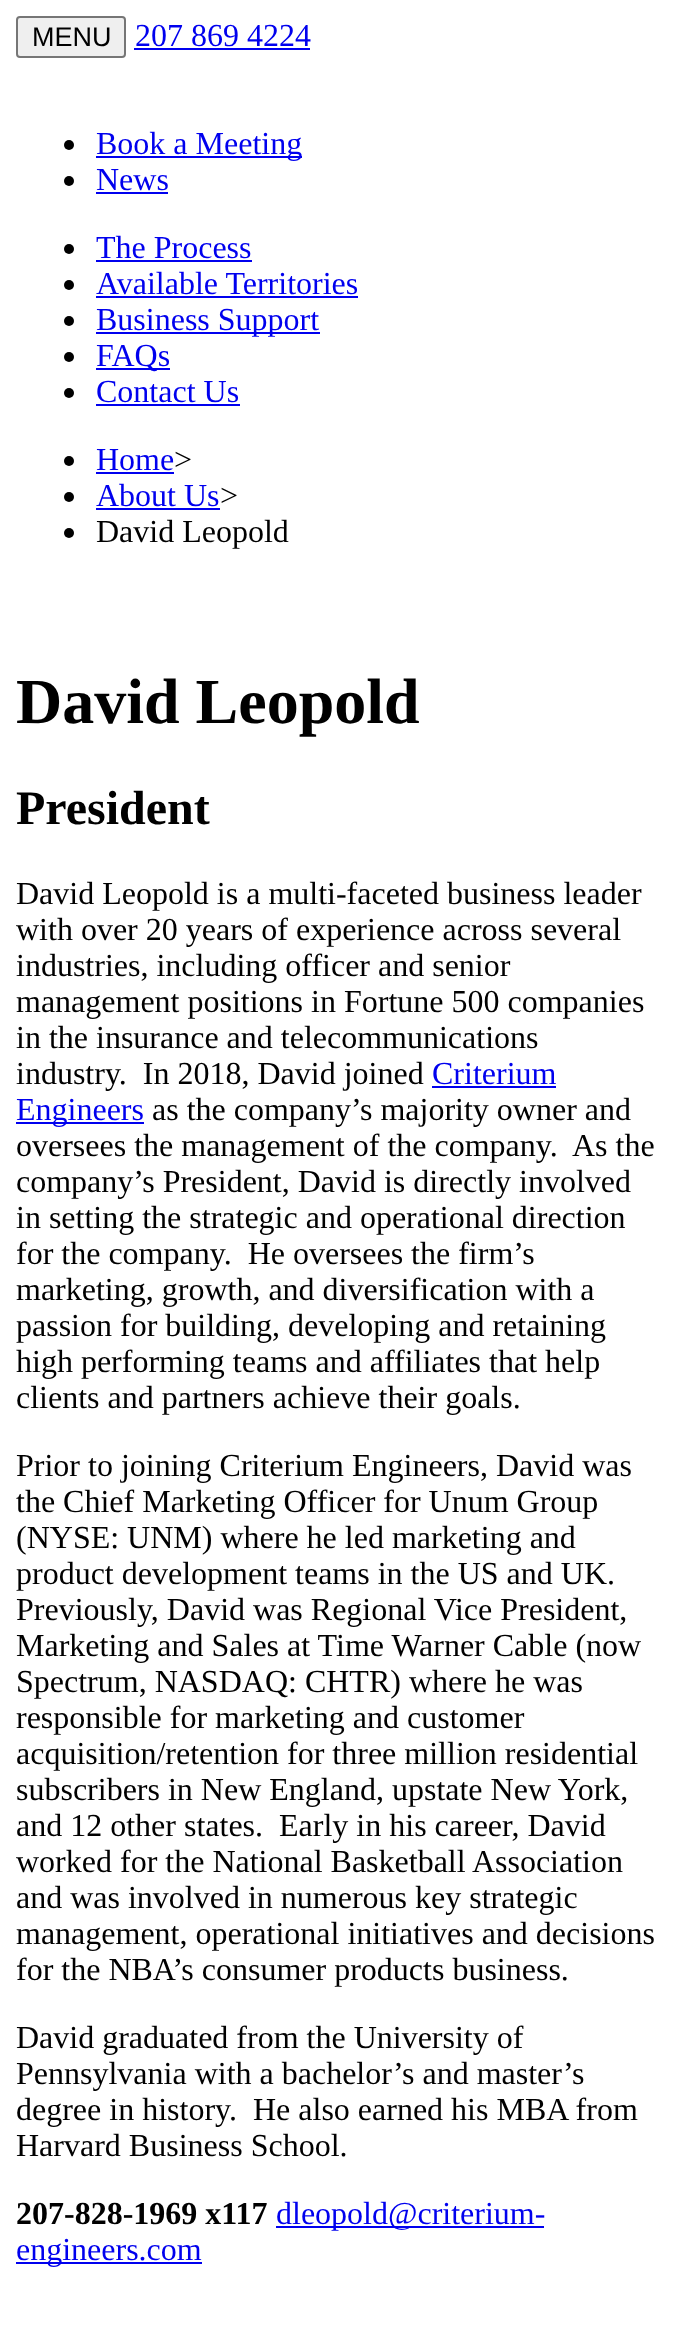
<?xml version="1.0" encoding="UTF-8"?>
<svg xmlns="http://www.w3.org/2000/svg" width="675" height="2347">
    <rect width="100%" height="100%" fill="#FFFFFF"/>
    <rect x="17" y="17" width="108" height="40" rx="3" fill="#EFEFEF" stroke="#767676" stroke-width="2"/>
    <text x="32" y="46" font-family="Liberation Sans" font-size="27" fill="#000000">MENU</text>
    <text x="135" y="46" font-family="Liberation Serif" font-size="32" fill="#0000EE">207 869 4224</text>
    <rect x="134" y="48" width="176" height="2" fill="#0000EE"/>
    <circle cx="69" cy="145" r="5" fill="#000000"/>
    <rect x="96" y="156" width="206" height="2" fill="#0000EE"/>
    <text x="96" y="154" font-family="Liberation Serif" font-size="32" fill="#0000EE">Book a Meeting</text>
    <circle cx="69" cy="181" r="5" fill="#000000"/>
    <text x="96" y="190" font-family="Liberation Serif" font-size="32" fill="#0000EE">News</text>
    <rect x="96" y="192" width="72" height="2" fill="#0000EE"/>
    <circle cx="69" cy="249" r="5" fill="#000000"/>
    <text x="96" y="258" font-family="Liberation Serif" font-size="32" fill="#0000EE">The Process</text>
    <rect x="96" y="260" width="156" height="2" fill="#0000EE"/>
    <circle cx="69" cy="285" r="5" fill="#000000"/>
    <text x="96" y="294" font-family="Liberation Serif" font-size="32" fill="#0000EE">Available Territories</text>
    <rect x="96" y="296" width="262" height="2" fill="#0000EE"/>
    <circle cx="69" cy="321" r="5" fill="#000000"/>
    <rect x="96" y="332" width="224" height="2" fill="#0000EE"/>
    <text x="96" y="330" font-family="Liberation Serif" font-size="32" fill="#0000EE">Business Support</text>
    <circle cx="69" cy="357" r="5" fill="#000000"/>
    <rect x="96" y="368" width="74" height="2" fill="#0000EE"/>
    <text x="96" y="366" font-family="Liberation Serif" font-size="32" fill="#0000EE">FAQs</text>
    <circle cx="69" cy="393" r="5" fill="#000000"/>
    <text x="96" y="402" font-family="Liberation Serif" font-size="32" fill="#0000EE">Contact Us</text>
    <rect x="96" y="404" width="144" height="2" fill="#0000EE"/>
    <circle cx="69" cy="461" r="5" fill="#000000"/>
    <text x="96" y="470" font-family="Liberation Serif" font-size="32" fill="#0000EE">Home</text>
    <rect x="96" y="472" width="78" height="2" fill="#0000EE"/>
    <text x="174" y="470" font-family="Liberation Serif" font-size="32" fill="#000000">&gt;</text>
    <circle cx="69" cy="497" r="5" fill="#000000"/>
    <text x="96" y="506" font-family="Liberation Serif" font-size="32" fill="#0000EE">About Us</text>
    <rect x="96" y="508" width="124" height="2" fill="#0000EE"/>
    <text x="220" y="506" font-family="Liberation Serif" font-size="32" fill="#000000">&gt;</text>
    <circle cx="69" cy="533" r="5" fill="#000000"/>
    <text x="96" y="542" font-family="Liberation Serif" font-size="32" fill="#000000">David Leopold</text>
    <text x="16" y="723" font-family="Liberation Serif" font-size="64" font-weight="700" fill="#000000">David Leopold</text>
    <text x="16" y="824" font-family="Liberation Serif" font-size="48" font-weight="700" fill="#000000">President</text>
    <text font-family="Liberation Serif" font-size="32" fill="#000000" xml:space="preserve"><tspan x="16" y="904">David Leopold is a multi-faceted business leader</tspan><tspan x="16" y="940">with over 20 years of experience across several</tspan><tspan x="16" y="976">industries, including officer and senior</tspan><tspan x="16" y="1012">management positions in Fortune 500 companies</tspan><tspan x="16" y="1048">in the insurance and telecommunications</tspan><tspan x="16" y="1084">industry.  In 2018, David joined</tspan></text>
    <text x="432" y="1084" font-family="Liberation Serif" font-size="32" fill="#0000EE">Criterium</text>
    <rect x="432" y="1086" width="124" height="2" fill="#0000EE"/>
    <rect x="16" y="1122" width="128" height="2" fill="#0000EE"/>
    <text x="16" y="1120" font-family="Liberation Serif" font-size="32" fill="#0000EE">Engineers</text>
    <text x="152" y="1120" font-family="Liberation Serif" font-size="32" fill="#000000">as the company’s majority owner and</text>
    <text font-family="Liberation Serif" font-size="32" fill="#000000" xml:space="preserve"><tspan x="16" y="1156">oversees the management of the company.  As the</tspan><tspan x="16" y="1192">company’s President, David is directly involved</tspan><tspan x="16" y="1228">in setting the strategic and operational direction</tspan><tspan x="16" y="1264">for the company.  He oversees the firm’s</tspan><tspan x="16" y="1300">marketing, growth, and diversification with a</tspan><tspan x="16" y="1336">passion for building, developing and retaining</tspan><tspan x="16" y="1372">high performing teams and affiliates that help</tspan><tspan x="16" y="1408">clients and partners achieve their goals.</tspan></text>
    <text font-family="Liberation Serif" font-size="32" fill="#000000" xml:space="preserve"><tspan x="16" y="1476">Prior to joining Criterium Engineers, David was</tspan><tspan x="16" y="1512">the Chief Marketing Officer for Unum Group</tspan><tspan x="16" y="1548">(NYSE: UNM) where he led marketing and</tspan><tspan x="16" y="1584">product development teams in the US and UK.</tspan><tspan x="16" y="1620">Previously, David was Regional Vice President,</tspan><tspan x="16" y="1656">Marketing and Sales at Time Warner Cable (now</tspan><tspan x="16" y="1692">Spectrum, NASDAQ: CHTR) where he was</tspan><tspan x="16" y="1728">responsible for marketing and customer</tspan><tspan x="16" y="1764">acquisition/retention for three million residential</tspan><tspan x="16" y="1800">subscribers in New England, upstate New York,</tspan><tspan x="16" y="1836">and 12 other states.  Early in his career, David</tspan><tspan x="16" y="1872">worked for the National Basketball Association</tspan><tspan x="16" y="1908">and was involved in numerous key strategic</tspan><tspan x="16" y="1944">management, operational initiatives and decisions</tspan><tspan x="16" y="1980">for the NBA’s consumer products business.</tspan></text>
    <text font-family="Liberation Serif" font-size="32" fill="#000000" xml:space="preserve"><tspan x="16" y="2048">David graduated from the University of</tspan><tspan x="16" y="2084">Pennsylvania with a bachelor’s and master’s</tspan><tspan x="16" y="2120">degree in history.  He also earned his MBA from</tspan><tspan x="16" y="2156">Harvard Business School.</tspan></text>
    <text x="16" y="2224" font-family="Liberation Serif" font-size="32" font-weight="700" fill="#000000">207-828-1969 x117</text>
    <rect x="276" y="2226" width="268" height="2" fill="#0000EE"/>
    <text x="276" y="2224" font-family="Liberation Serif" font-size="32" fill="#0000EE">dleopold@criterium-</text>
    <rect x="16" y="2262" width="186" height="2" fill="#0000EE"/>
    <text x="16" y="2260" font-family="Liberation Serif" font-size="32" fill="#0000EE">engineers.com</text>
</svg>
